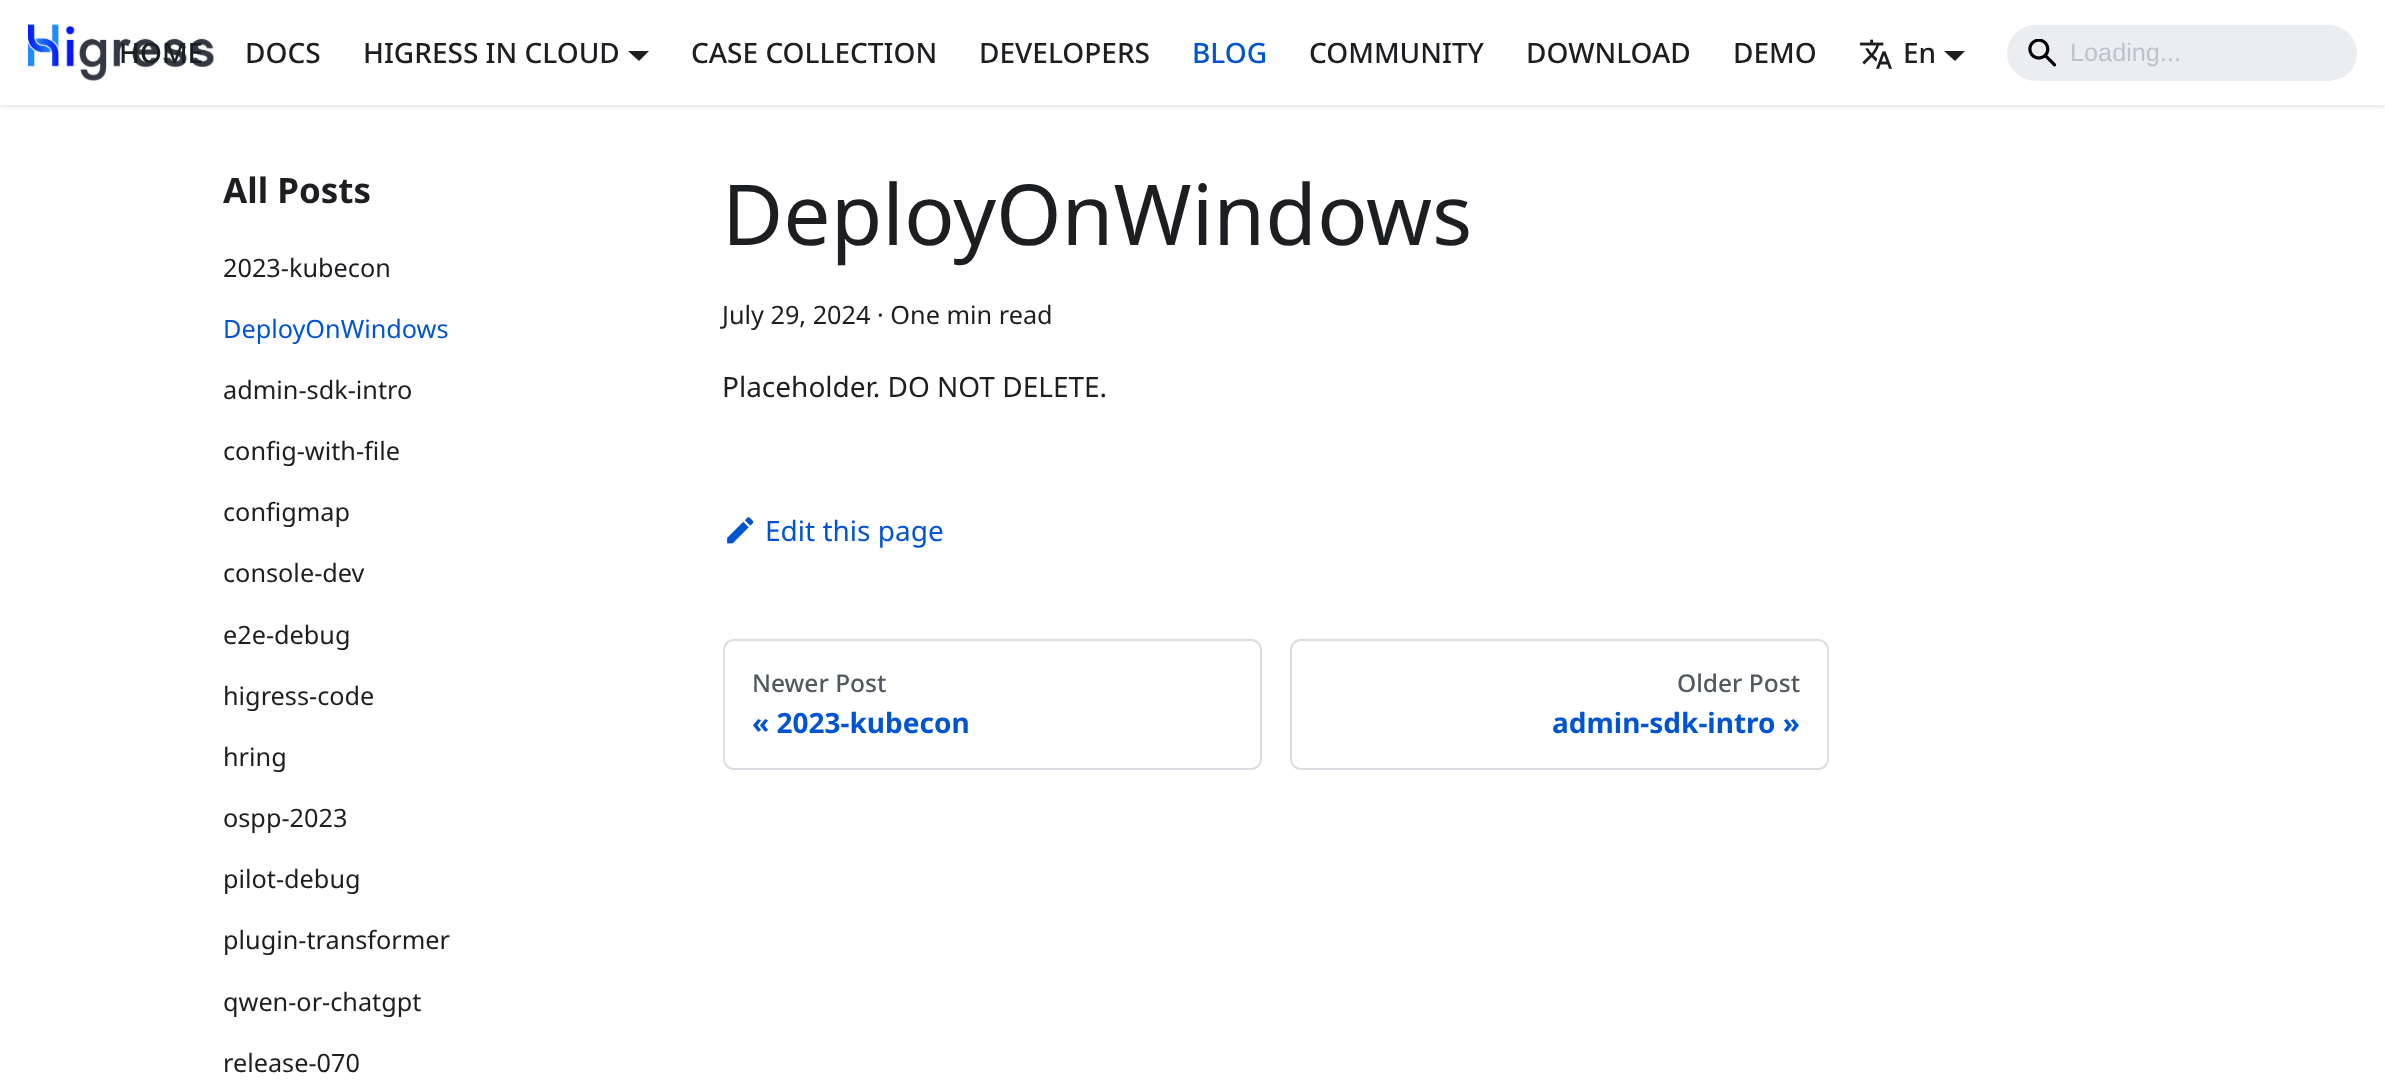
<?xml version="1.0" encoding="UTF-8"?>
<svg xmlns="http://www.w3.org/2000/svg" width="2385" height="1089">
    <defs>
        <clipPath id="clip1"><rect x="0" y="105" width="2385" height="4"/></clipPath>
        <filter id="blur1" x="-50%" y="-200%" width="200%" height="500%"><feGaussianBlur stdDeviation="2"/></filter>
    </defs>
    <rect width="100%" height="100%" fill="#FFFFFF"/>
    <g clip-path="url(#clip1)">
        <rect x="0" y="2" width="2385" height="105" fill="#000000" fill-opacity="0.1" filter="url(#blur1)"/>
    </g>
    <image x="28" y="24" width="186" height="57" href="img_01.png"/>
    <text x="119" y="63" font-family="Noto Sans" font-size="28" font-weight="500" fill="#1C1E21">HOME</text>
    <text x="245" y="63" font-family="Noto Sans" font-size="28" font-weight="500" fill="#1C1E21">DOCS</text>
    <text x="363" y="63" font-family="Noto Sans" font-size="28" font-weight="500" fill="#1C1E21">HIGRESS IN CLOUD</text>
    <path d="M 628 51 H 649 L 639 61 Z" fill="#1C1E21"/>
    <text x="691" y="63" font-family="Noto Sans" font-size="28" font-weight="500" fill="#1C1E21">CASE COLLECTION</text>
    <text x="979" y="63" font-family="Noto Sans" font-size="28" font-weight="500" fill="#1C1E21">DEVELOPERS</text>
    <text x="1192" y="63" font-family="Noto Sans" font-size="28" font-weight="500" fill="#0054D1">BLOG</text>
    <text x="1309" y="63" font-family="Noto Sans" font-size="28" font-weight="500" fill="#1C1E21">COMMUNITY</text>
    <text x="1526" y="63" font-family="Noto Sans" font-size="28" font-weight="500" fill="#1C1E21">DOWNLOAD</text>
    <text x="1733" y="63" font-family="Noto Sans" font-size="28" font-weight="500" fill="#1C1E21">DEMO</text>
    <image x="1859" y="39" width="33" height="30" href="img_02.png"/>
    <text x="1903" y="63" font-family="Noto Sans" font-size="28" font-weight="500" fill="#1C1E21">En</text>
    <path d="M 1944 51 H 1965 L 1955 61 Z" fill="#1C1E21"/>
    <rect x="2007" y="25" width="350" height="56" rx="28" fill="#EBEDF0"/>
    <image x="2028" y="39" width="28" height="28" href="img_03.png"/>
    <text x="2070" y="61" font-family="Liberation Sans" font-size="25.25" fill="#BEC3C9">Loading...</text>
    <text x="223" y="203" font-family="Noto Sans" font-size="35" font-weight="700" fill="#1C1E21">All Posts</text>
    <text x="223" y="277" font-family="Noto Sans" font-size="25.25" fill="#1C1E21">2023-kubecon</text>
    <text x="223" y="338" font-family="Noto Sans" font-size="25.25" fill="#0054D1">DeployOnWindows</text>
    <text x="223" y="399" font-family="Noto Sans" font-size="25.25" fill="#1C1E21">admin-sdk-intro</text>
    <text x="223" y="460" font-family="Noto Sans" font-size="25.25" fill="#1C1E21">config-with-file</text>
    <text x="223" y="521" font-family="Noto Sans" font-size="25.25" fill="#1C1E21">configmap</text>
    <text x="223" y="582" font-family="Noto Sans" font-size="25.25" fill="#1C1E21">console-dev</text>
    <text x="223" y="644" font-family="Noto Sans" font-size="25.25" fill="#1C1E21">e2e-debug</text>
    <text x="223" y="705" font-family="Noto Sans" font-size="25.25" fill="#1C1E21">higress-code</text>
    <text x="223" y="766" font-family="Noto Sans" font-size="25.25" fill="#1C1E21">hring</text>
    <text x="223" y="827" font-family="Noto Sans" font-size="25.25" fill="#1C1E21">ospp-2023</text>
    <text x="223" y="888" font-family="Noto Sans" font-size="25.25" fill="#1C1E21">pilot-debug</text>
    <text x="223" y="949" font-family="Noto Sans" font-size="25.25" fill="#1C1E21">plugin-transformer</text>
    <text x="223" y="1011" font-family="Noto Sans" font-size="25.25" fill="#1C1E21">qwen-or-chatgpt</text>
    <text x="223" y="1072" font-family="Noto Sans" font-size="25.25" fill="#1C1E21">release-070</text>
    <text x="722" y="245" font-family="Noto Sans" font-size="84" fill="#1C1E21">DeployOnWindows</text>
    <text x="722" y="324" font-family="Noto Sans" font-size="25.25" fill="#1C1E21">July 29, 2024 · One min read</text>
    <text x="722" y="397" font-family="Noto Sans" font-size="28" fill="#1C1E21">Placeholder. DO NOT DELETE.</text>
    <image x="727" y="517" width="27" height="27" href="img_04.png"/>
    <text x="765" y="541" font-family="Noto Sans" font-size="28" fill="#0054D1">Edit this page</text>
    <rect x="724" y="640" width="537" height="129" rx="10" fill="none" stroke="#DADDE1" stroke-width="2"/>
    <text x="752" y="692" font-family="Noto Sans" font-size="24.5" font-weight="500" fill="#525860">Newer Post</text>
    <text x="752" y="733" font-family="Noto Sans" font-size="28" font-weight="700" fill="#0054D1">« 2023-kubecon</text>
    <rect x="1291" y="640" width="537" height="129" rx="10" fill="none" stroke="#DADDE1" stroke-width="2"/>
    <text x="1677" y="692" font-family="Noto Sans" font-size="24.5" font-weight="500" fill="#525860">Older Post</text>
    <text x="1552" y="733" font-family="Noto Sans" font-size="28" font-weight="700" fill="#0054D1">admin-sdk-intro »</text>
</svg>
